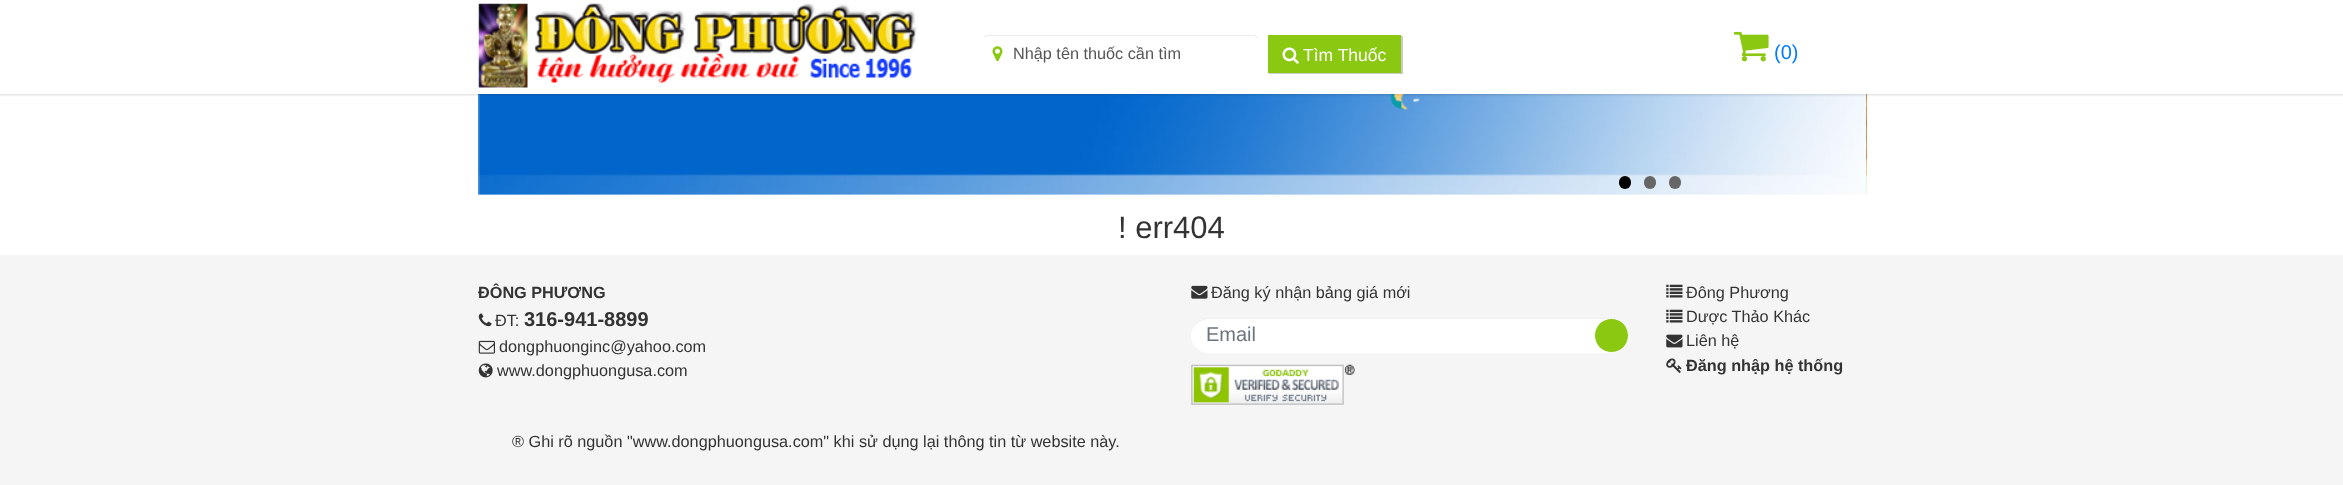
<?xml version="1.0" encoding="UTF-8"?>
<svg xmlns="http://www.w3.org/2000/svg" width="2343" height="485">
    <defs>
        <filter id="blur1" x="-50%" y="-200%" width="200%" height="500%"><feGaussianBlur stdDeviation="1"/></filter>
        <filter id="blur2" x="-50%" y="-200%" width="200%" height="500%"><feGaussianBlur stdDeviation="0.5"/></filter>
    </defs>
    <rect width="100%" height="100%" fill="#FFFFFF"/>
    <image x="478" y="94" width="1388" height="101" href="img_05.png"/>
    <image x="1866" y="94" width="1" height="101" href="img_06.png"/>
    <rect x="0" y="1" width="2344" height="94" fill="#000000" fill-opacity="0.15" filter="url(#blur1)"/>
    <rect x="0" y="0" width="2343" height="94" fill="#FFFFFF"/>
    <image x="478" y="3" width="439" height="85" href="img_01.png"/>
    <image x="992" y="46" width="11" height="16" href="img_02.png"/>
    <path d="M 988 36 H 1252 C 1255 36 1258 38 1258 41 V 40 C 1258 37 1256 35 1253 35 H 988 C 986 35 984 36 984 38 C 985 37 986 36 988 36 Z" fill="#ECECEC"/>
    <text x="1013" y="59" font-family="Liberation Sans" font-size="16.25" fill="#555555">Nhập tên thuốc cần tìm</text>
    <rect x="1269" y="36" width="134" height="38" fill="#000000" fill-opacity="0.2" filter="url(#blur2)"/>
    <rect x="1268" y="35" width="133" height="38" fill="#8BC811"/>
    <image x="1282" y="47" width="17" height="17" href="img_03.png"/>
    <text x="1303" y="61" font-family="Liberation Sans" font-size="17.5" fill="#FFFFFF">Tìm Thuốc</text>
    <image x="1733" y="31" width="36" height="31" href="img_04.png"/>
    <text x="1774" y="59" font-family="Liberation Sans" font-size="20" fill="#007BFF">(0)</text>
    <rect x="1619" y="176" width="12" height="13" rx="6" fill="#000000"/>
    <rect x="1644" y="176" width="12" height="13" rx="6" fill="#666666"/>
    <rect x="1669" y="176" width="12" height="13" rx="6" fill="#666666"/>
    <text x="1118" y="238" font-family="Liberation Sans" font-size="31" fill="#333333">! err404</text>
    <rect x="0" y="255" width="2343" height="230" fill="#F5F5F5"/>
    <text x="478" y="298" font-family="Liberation Sans" font-size="16.25" font-weight="700" fill="#333333">ĐÔNG PHƯƠNG</text>
    <image x="478" y="313" width="14" height="14" href="img_07.png"/>
    <text x="495" y="326" font-family="Liberation Sans" font-size="16.25" fill="#333333">ĐT:</text>
    <text x="524" y="326" font-family="Liberation Sans" font-size="20" font-weight="700" fill="#333333">316-941-8899</text>
    <image x="478" y="340" width="17" height="14" href="img_08.png"/>
    <text x="499" y="352" font-family="Liberation Sans" font-size="16.25" fill="#333333">dongphuonginc@yahoo.com</text>
    <image x="478" y="363" width="15" height="15" href="img_09.png"/>
    <text x="497" y="376" font-family="Liberation Sans" font-size="16.25" fill="#333333">www.dongphuongusa.com</text>
    <image x="1191" y="285" width="17" height="14" href="img_10.png"/>
    <text x="1211" y="298" font-family="Liberation Sans" font-size="16.25" fill="#333333">Đăng ký nhận bảng giá mới</text>
    <rect x="1191" y="318" width="438" height="35" rx="17.5" fill="#FFFFFF"/>
    <path d="M 1209 319 H 1611 C 1621 319 1629 327 1629 336 C 1629 327 1623 320 1615 318 H 1208 C 1199 318 1191 326 1191 336 C 1191 327 1199 319 1209 319 Z" fill="#000000" fill-opacity="0.07"/>
    <text x="1206" y="341" font-family="Liberation Sans" font-size="20" fill="#6C757D">Email</text>
    <circle cx="1611.5" cy="335.5" r="17" fill="#8BC811" stroke="#FFFFFF"/>
    <image x="1191" y="364" width="164" height="41" href="img_11.png"/>
    <image x="1666" y="284" width="17" height="14" href="img_12.png"/>
    <text x="1686" y="298" font-family="Liberation Sans" font-size="16.25" fill="#333333">Đông Phương</text>
    <image x="1666" y="309" width="17" height="14" href="img_12.png"/>
    <text x="1686" y="322" font-family="Liberation Sans" font-size="16.25" fill="#333333">Dược Thảo Khác</text>
    <image x="1666" y="334" width="17" height="14" href="img_13.png"/>
    <text x="1686" y="346" font-family="Liberation Sans" font-size="16.25" fill="#333333">Liên hệ</text>
    <image x="1666" y="358" width="16" height="15" href="img_14.png"/>
    <text x="1686" y="371" font-family="Liberation Sans" font-size="16.25" font-weight="700" fill="#333333">Đăng nhập hệ thống</text>
    <text x="512" y="447" font-family="Liberation Sans" font-size="16.25" fill="#333333">® Ghi rõ nguồn "www.dongphuongusa.com" khi sử dụng lại thông tin từ website này.</text>
</svg>
